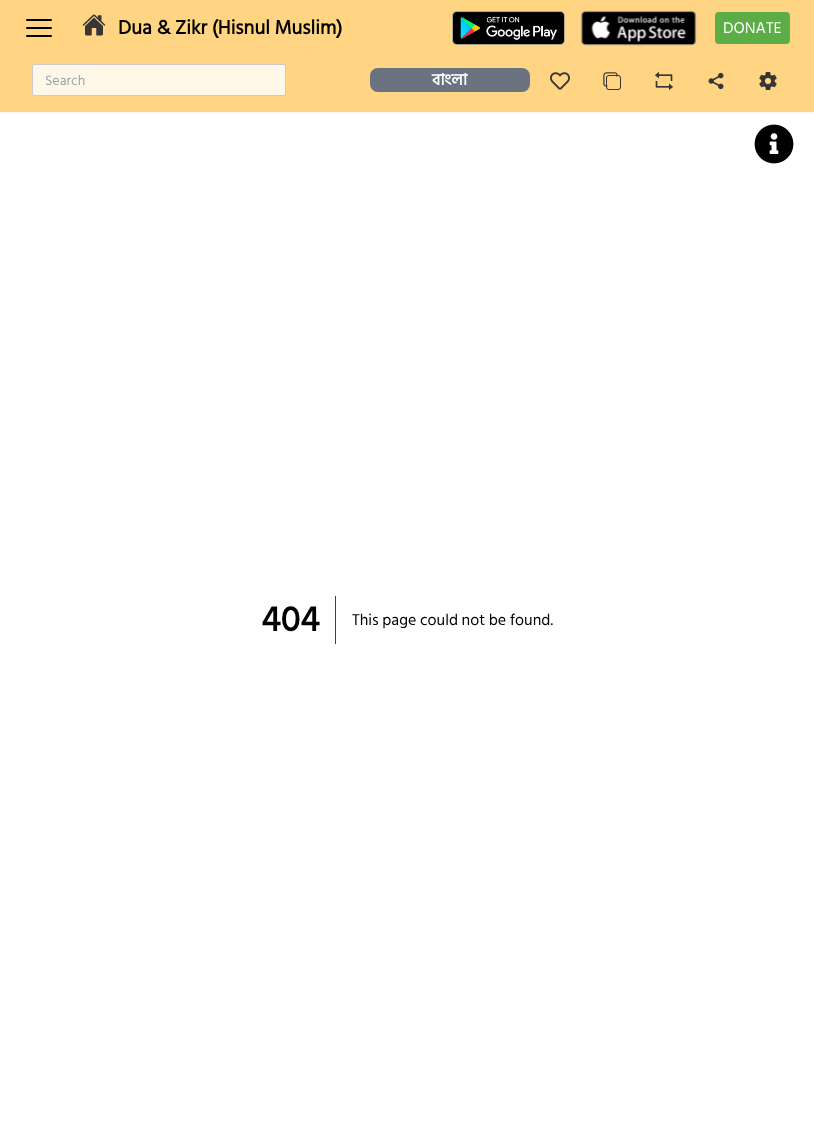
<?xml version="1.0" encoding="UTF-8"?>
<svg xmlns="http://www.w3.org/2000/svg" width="814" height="1128">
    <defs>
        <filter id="blur1" x="-50%" y="-200%" width="200%" height="500%"><feGaussianBlur stdDeviation="1"/></filter>
    </defs>
    <rect width="100%" height="100%" fill="#FFFFFF"/>
    <rect x="0" y="1" width="814" height="112" fill="#000000" fill-opacity="0.05" filter="url(#blur1)"/>
    <rect x="0" y="0" width="814" height="112" fill="#FFD583"/>
    <image x="26" y="19" width="26" height="18" href="img_01.png"/>
    <image x="82" y="14" width="24" height="22" href="img_02.png"/>
    <text x="118" y="34" font-family="Hind Siliguri" font-size="20" font-weight="700" fill="#000000">Dua &amp; Zikr (Hisnul Muslim)</text>
    <image x="452" y="11" width="113" height="34" href="img_03.png"/>
    <image x="580" y="10" width="117" height="36" href="img_04.png"/>
    <rect x="715" y="12" width="75" height="32" rx="4" fill="#5DAD47"/>
    <text x="723" y="33" font-family="Hind Siliguri" font-size="16" fill="#FFFFFF">DONATE</text>
    <rect x="32.5" y="64.5" width="253" height="31" rx="1.5" fill="#FFF8E9" stroke="#CCCCCC"/>
    <text x="45" y="85" font-family="Hind Siliguri" font-size="14" fill="#9CA3AF">Search</text>
    <rect x="370" y="68" width="160" height="24" rx="8" fill="#6B7280"/>
    <text x="432" y="85" font-family="Hind Siliguri" font-size="16" font-weight="700" fill="#FFFFFF">বাংলা</text>
    <image x="550" y="72" width="20" height="18" href="img_05.png"/>
    <image x="603" y="72" width="18" height="18" href="img_06.png"/>
    <image x="654" y="72" width="20" height="18" href="img_07.png"/>
    <image x="708" y="72" width="16" height="18" href="img_08.png"/>
    <image x="759" y="72" width="18" height="18" href="img_09.png"/>
    <image x="754" y="124" width="40" height="40" href="img_10.png"/>
    <text x="261" y="631" font-family="Hind Siliguri" font-size="36" font-weight="700" fill="#000000">404</text>
    <rect x="335" y="596" width="1" height="48" fill="#404040"/>
    <text x="352" y="625" font-family="Hind Siliguri" font-size="16" fill="#000000">This page could not be found.</text>
</svg>
